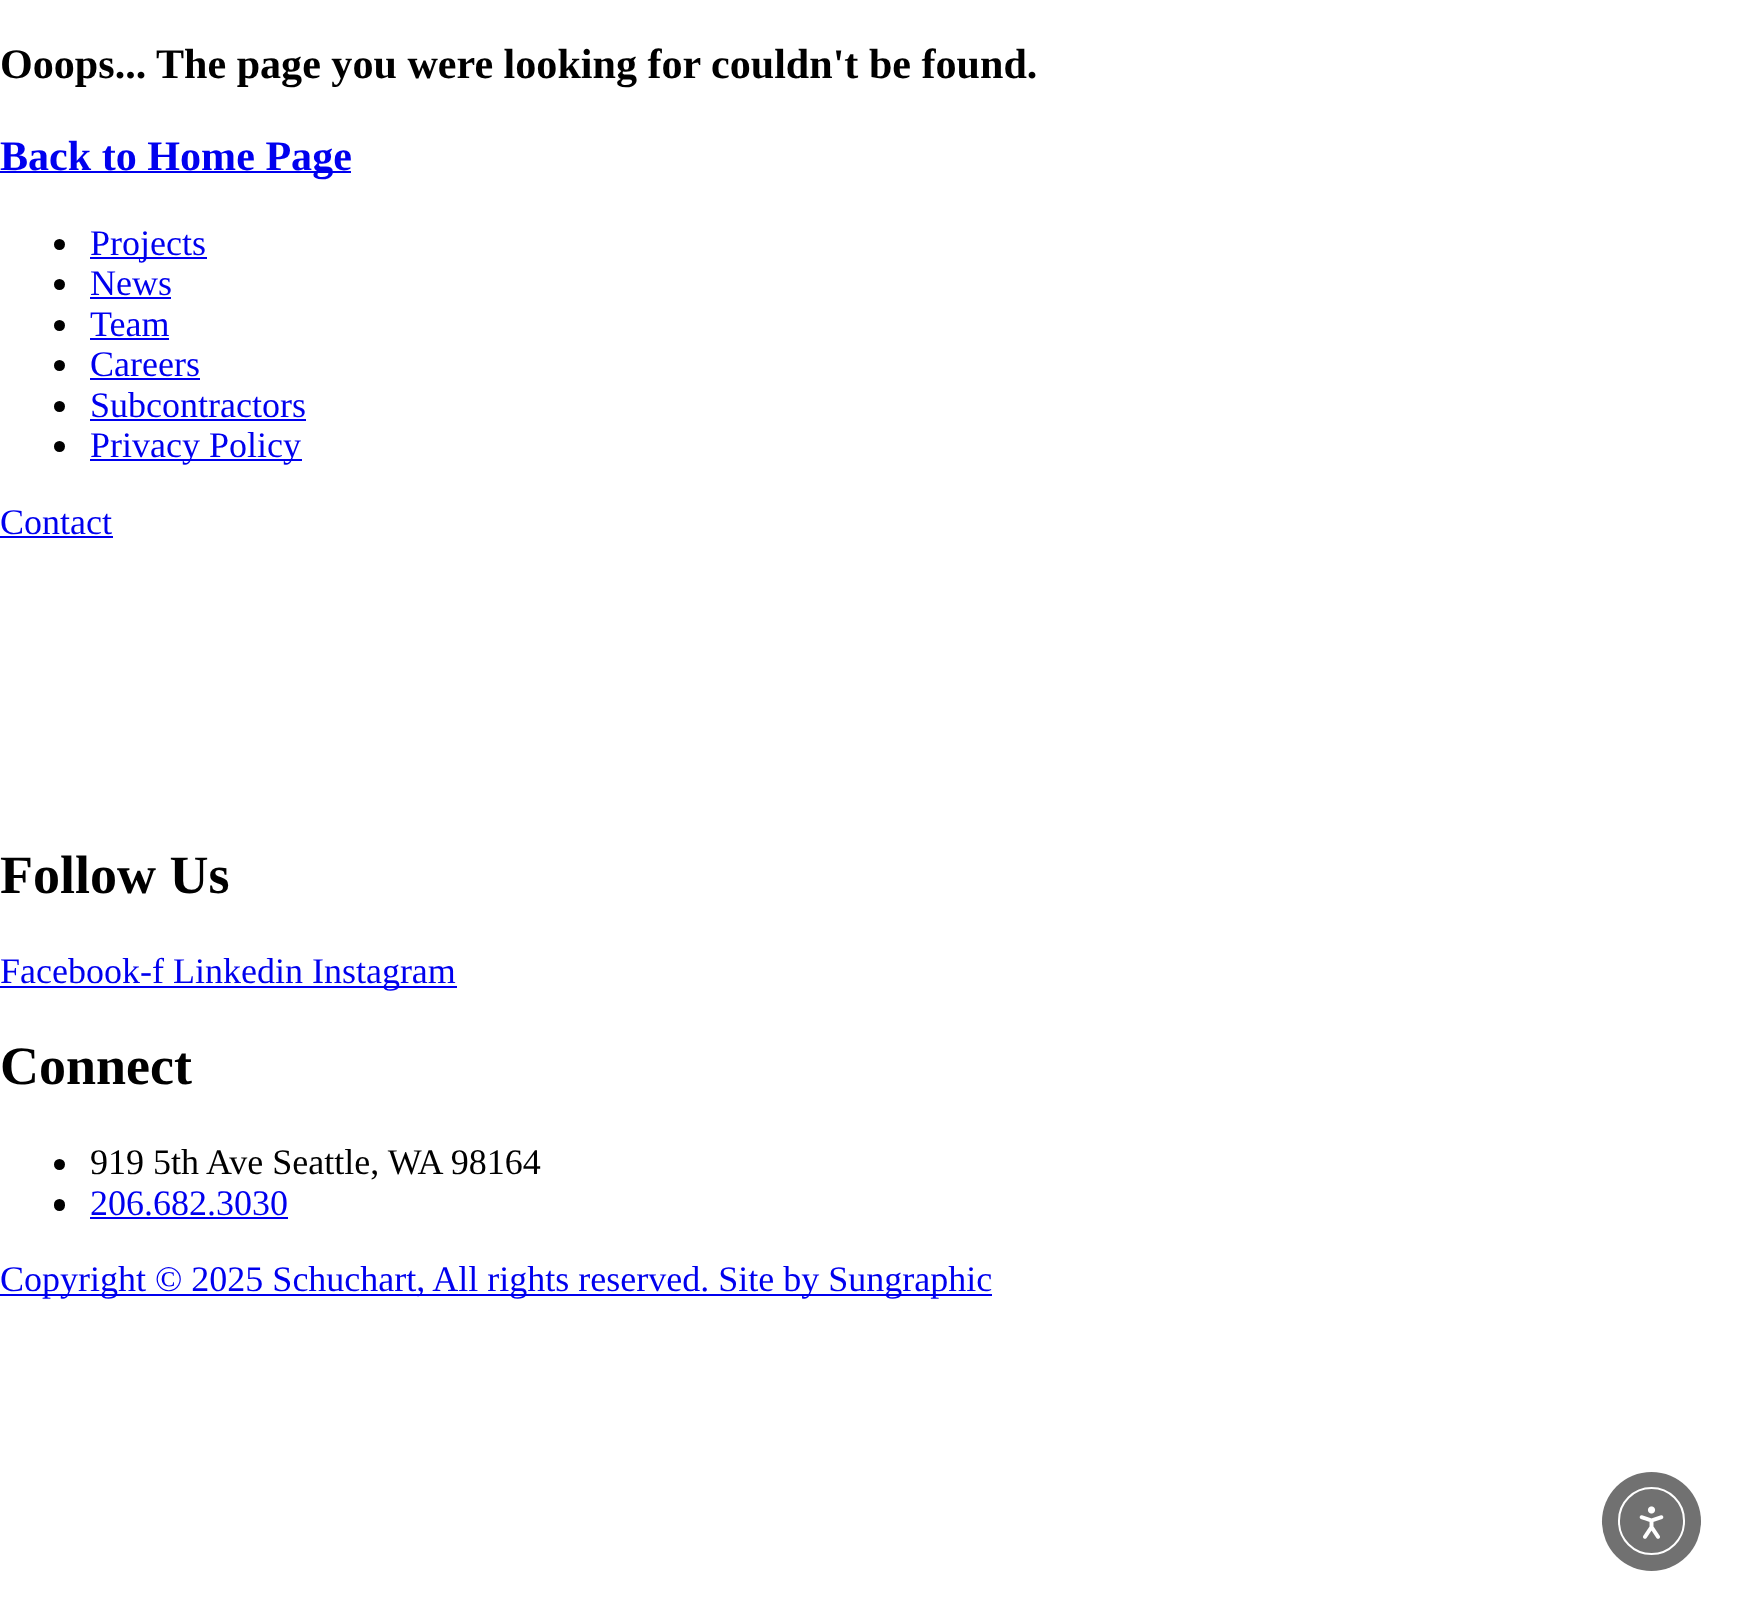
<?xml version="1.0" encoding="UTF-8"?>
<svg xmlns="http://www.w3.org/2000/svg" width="1753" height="1623">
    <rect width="100%" height="100%" fill="#FFFFFF"/>
    <text x="0" y="78" font-family="Liberation Serif" font-size="42.1" font-weight="700" fill="#000000">Ooops... The page you were looking for couldn't be found.</text>
    <rect x="0" y="171" width="351" height="2" fill="#0000EE"/>
    <text x="0" y="170" font-family="Liberation Serif" font-size="42.1" font-weight="700" fill="#0000EE">Back to Home Page</text>
    <circle cx="59.5" cy="244.5" r="5.5" fill="#000000"/>
    <rect x="90" y="257" width="117" height="2" fill="#0000EE"/>
    <text x="90" y="255" font-family="Liberation Serif" font-size="36" fill="#0000EE">Projects</text>
    <circle cx="59.5" cy="284.5" r="5.5" fill="#000000"/>
    <text x="90" y="295" font-family="Liberation Serif" font-size="36" fill="#0000EE">News</text>
    <rect x="90" y="297" width="81" height="2" fill="#0000EE"/>
    <circle cx="59.5" cy="325.5" r="5.5" fill="#000000"/>
    <text x="90" y="336" font-family="Liberation Serif" font-size="36" fill="#0000EE">Team</text>
    <rect x="90" y="338" width="79" height="2" fill="#0000EE"/>
    <circle cx="59.5" cy="365.5" r="5.5" fill="#000000"/>
    <text x="90" y="376" font-family="Liberation Serif" font-size="36" fill="#0000EE">Careers</text>
    <rect x="90" y="378" width="110" height="2" fill="#0000EE"/>
    <circle cx="59.5" cy="406.5" r="5.5" fill="#000000"/>
    <text x="90" y="417" font-family="Liberation Serif" font-size="36" fill="#0000EE">Subcontractors</text>
    <rect x="90" y="419" width="216" height="2" fill="#0000EE"/>
    <circle cx="59.5" cy="446.5" r="5.5" fill="#000000"/>
    <rect x="90" y="459" width="212" height="2" fill="#0000EE"/>
    <text x="90" y="457" font-family="Liberation Serif" font-size="36" fill="#0000EE">Privacy Policy</text>
    <text x="0" y="534" font-family="Liberation Serif" font-size="36" fill="#0000EE">Contact</text>
    <rect x="0" y="536" width="113" height="2" fill="#0000EE"/>
    <text x="0" y="893" font-family="Liberation Serif" font-size="54" font-weight="700" fill="#000000">Follow Us</text>
    <rect x="0" y="986" width="457" height="2" fill="#0000EE"/>
    <text x="0" y="983" font-family="Liberation Serif" font-size="36" fill="#0000EE">Facebook-f Linkedin Instagram</text>
    <text x="0" y="1084" font-family="Liberation Serif" font-size="54" font-weight="700" fill="#000000">Connect</text>
    <circle cx="59.5" cy="1164.5" r="5.5" fill="#000000"/>
    <text x="90" y="1174" font-family="Liberation Serif" font-size="36" fill="#000000">919 5th Ave Seattle, WA 98164</text>
    <rect x="54" y="1199" width="11" height="12" rx="5.5" fill="#000000"/>
    <text x="90" y="1215" font-family="Liberation Serif" font-size="36" fill="#0000EE">206.682.3030</text>
    <rect x="90" y="1217" width="198" height="2" fill="#0000EE"/>
    <rect x="0" y="1294" width="992" height="2" fill="#0000EE"/>
    <text x="0" y="1291" font-family="Liberation Serif" font-size="36" fill="#0000EE">Copyright © 2025 Schuchart, All rights reserved. Site by Sungraphic</text>
    <circle cx="1651.5" cy="1521.5" r="49.5" fill="#717171"/>
    <rect x="1619" y="1488" width="65" height="66" rx="32.5" fill="none" stroke="#FFFFFF" stroke-width="2"/>
    <image x="1639" y="1506" width="25" height="33" href="img_01.png"/>
</svg>
